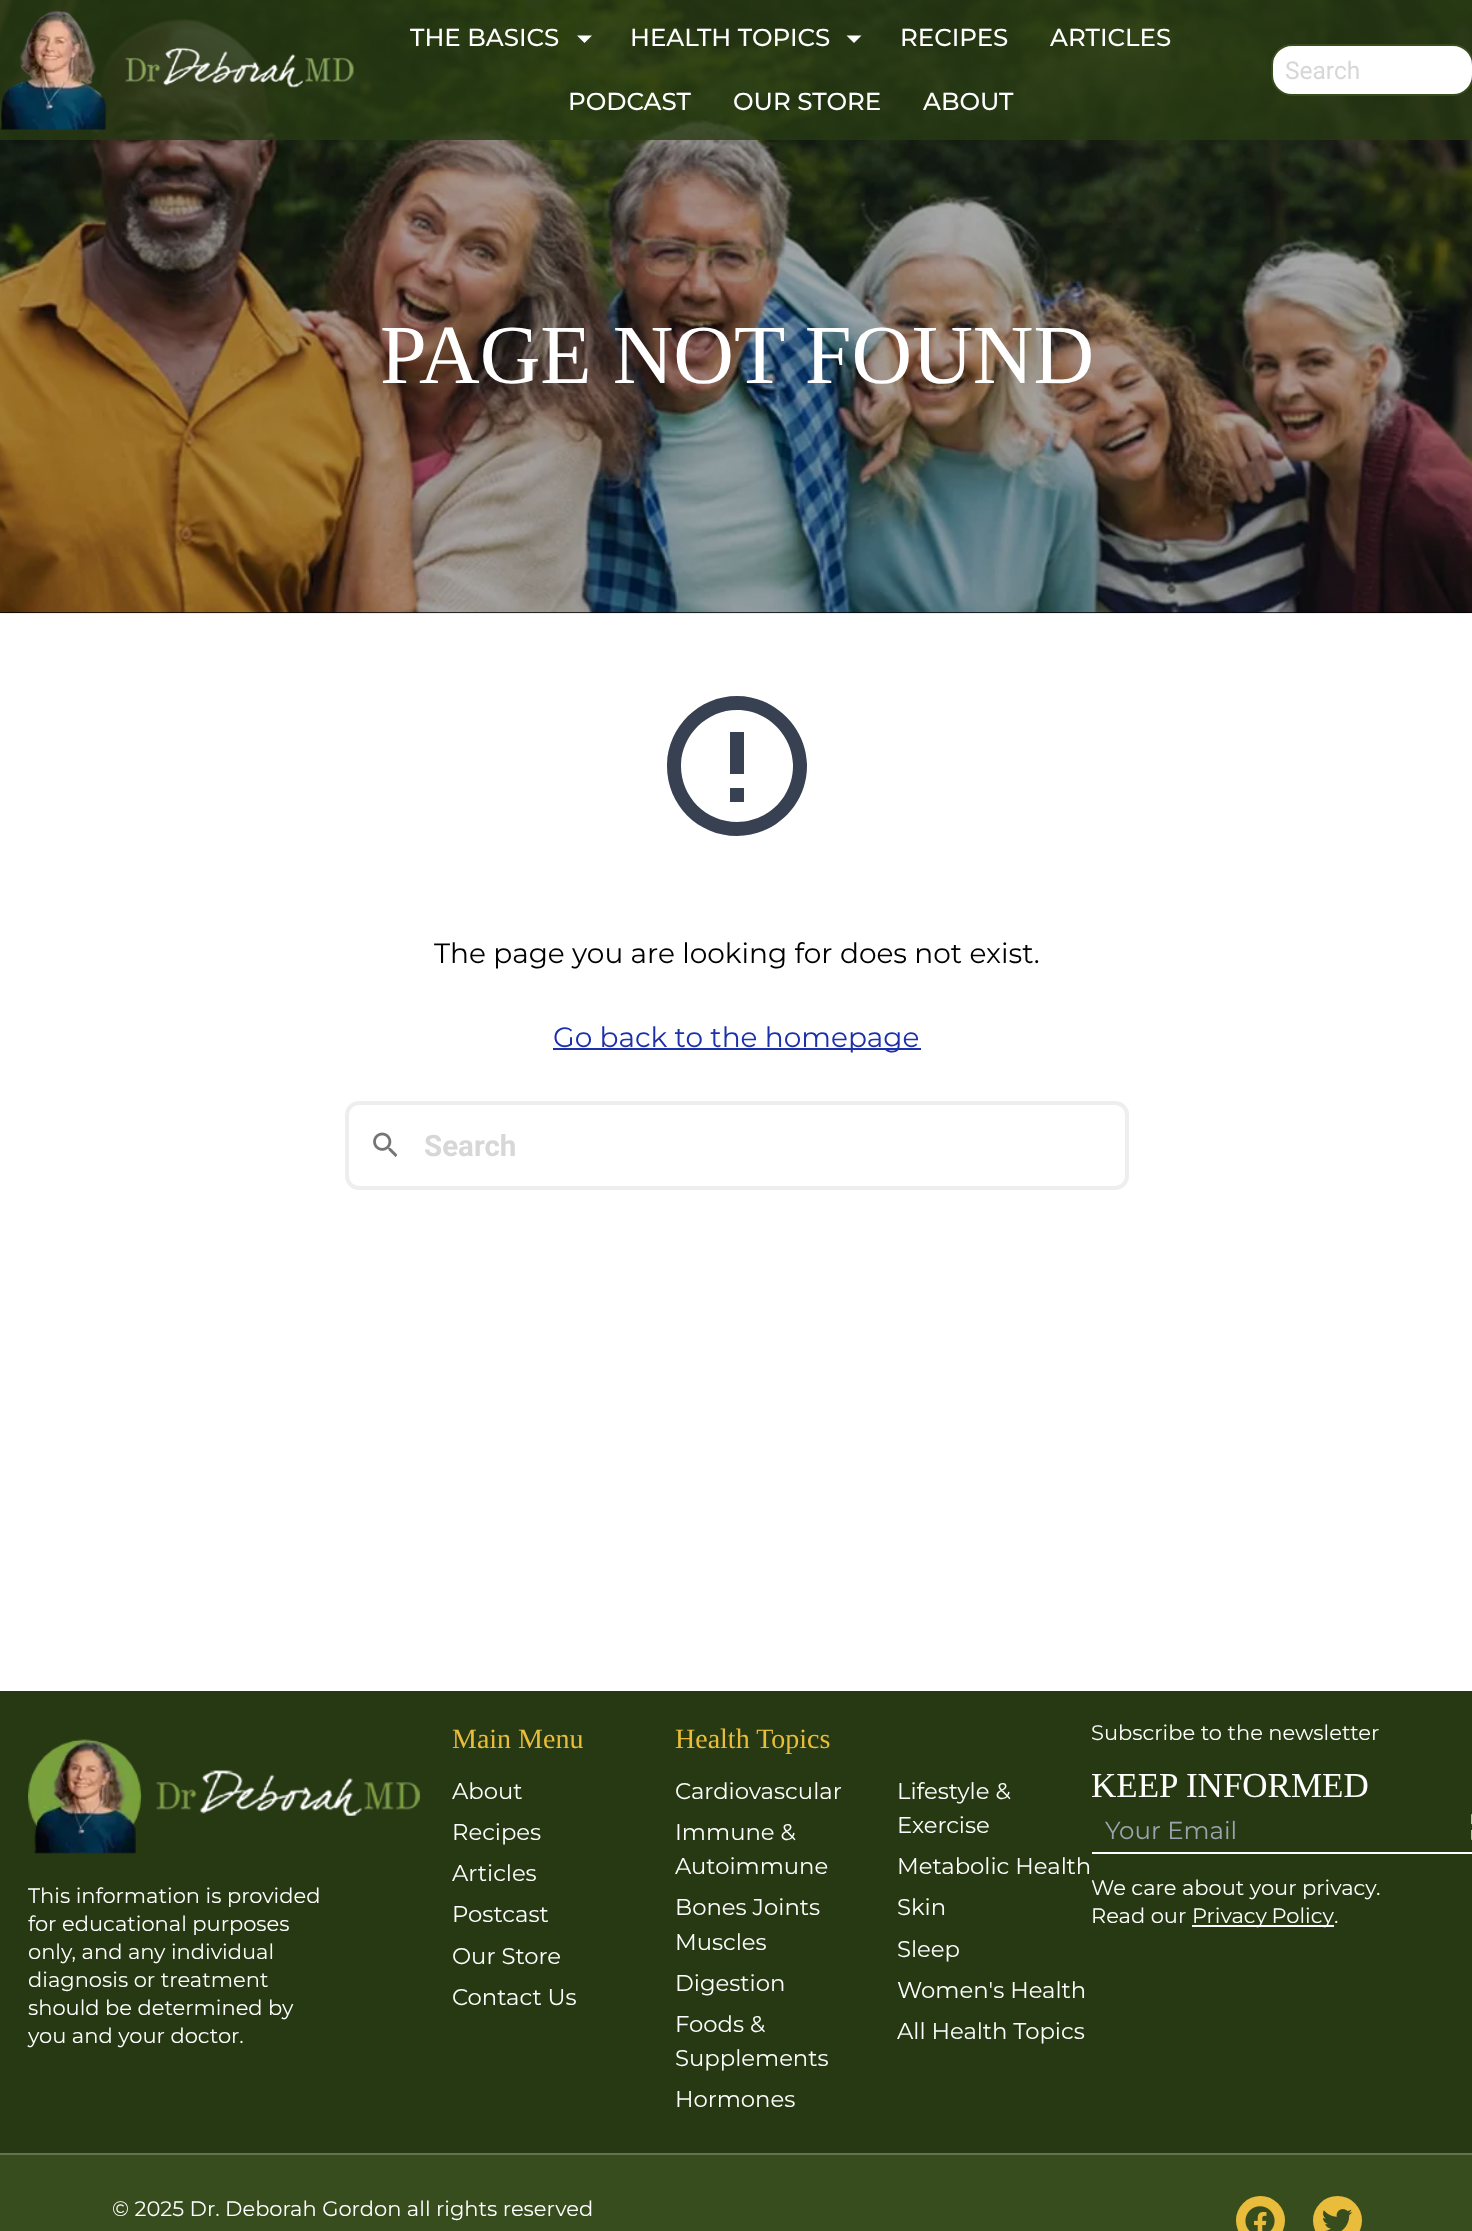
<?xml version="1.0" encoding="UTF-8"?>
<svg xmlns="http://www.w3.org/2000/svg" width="1472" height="2231">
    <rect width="100%" height="100%" fill="#FFFFFF"/>
    <rect x="0" y="0" width="1472" height="613" fill="#000000"/>
    <image x="0" y="0" width="1472" height="614" href="img_02.png"/>
    <rect x="0" y="0" width="1472" height="140" fill="#273913" fill-opacity="0.8"/>
    <image x="0" y="10" width="354" height="120" href="img_01.png"/>
    <text x="410" y="46" font-family="Montserrat" font-size="24.5" font-weight="500" fill="#FFFFFF">THE BASICS</text>
    <path d="M 577 35.5 L 584.5 43 L 592 35.5 Z" fill="#FFFFFF"/>
    <text x="630" y="46" font-family="Montserrat" font-size="24.5" font-weight="500" fill="#FFFFFF">HEALTH TOPICS</text>
    <path d="M 846.5 35.5 L 854 43 L 861.5 35.5 Z" fill="#FFFFFF"/>
    <text x="900" y="46" font-family="Montserrat" font-size="24.5" font-weight="500" fill="#FFFFFF">RECIPES</text>
    <text x="1050" y="46" font-family="Montserrat" font-size="24.5" font-weight="500" fill="#FFFFFF">ARTICLES</text>
    <text x="568" y="110" font-family="Montserrat" font-size="24.5" font-weight="500" fill="#FFFFFF">PODCAST</text>
    <text x="733" y="110" font-family="Montserrat" font-size="24.5" font-weight="500" fill="#FFFFFF">OUR STORE</text>
    <text x="923" y="110" font-family="Montserrat" font-size="24.5" font-weight="500" fill="#FFFFFF">ABOUT</text>
    <rect x="1272" y="45" width="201" height="50" rx="20" fill="#FFFFFF" stroke="#384D1D" stroke-width="2"/>
    <text x="1285" y="79" font-family="Roboto" font-size="24.5" fill="#D7D7D7">Search</text>
    <text x="380" y="383" font-family="Liberation Serif" font-size="84" fill="#FFFFFF">PAGE NOT FOUND</text>
    <path d="M 730 788 H 744 V 802 H 730 Z M 730 732 H 744 V 774 H 730 Z M 737 696 C 698 696 667 728 667 766 C 667 805 698 836 737 836 C 775 836 807 805 807 766 C 807 728 775 696 737 696 M 737 822 C 706 822 681 797 681 766 C 681 736 706 710 737 710 C 768 710 793 736 793 766 C 793 797 768 822 737 822" fill="#374151"/>
    <text x="434" y="963" font-family="Montserrat" font-size="28" fill="#000000">The page you are looking for does not exist.</text>
    <rect x="553" y="1048" width="368" height="2" fill="#1C30AA"/>
    <text x="553" y="1047" font-family="Montserrat" font-size="28" fill="#1C30AA">Go back to the homepage</text>
    <rect x="347" y="1103" width="780" height="85" rx="12" fill="none" stroke="#EEEEEE" stroke-width="4"/>
    <image x="373" y="1132" width="24" height="25" href="img_03.png"/>
    <text x="424" y="1156" font-family="Roboto" font-size="29.5" font-weight="700" fill="#D7D7D7">Search</text>
    <rect x="0" y="1691" width="1472" height="462" fill="#273913"/>
    <image x="28" y="1739" width="392" height="115" href="img_04.png"/>
    <text font-family="Montserrat" font-size="21" fill="#FFFFFF">
        <tspan x="28" y="1903">This information is provided</tspan>
        <tspan x="28" y="1931">for educational purposes</tspan>
        <tspan x="28" y="1959">only, and any individual</tspan>
        <tspan x="28" y="1987">diagnosis or treatment</tspan>
        <tspan x="28" y="2015">should be determined by</tspan>
        <tspan x="28" y="2043">you and your doctor.</tspan>
    </text>
    <text x="452" y="1748" font-family="Liberation Serif" font-size="28" fill="#E9BD3B">Main Menu</text>
    <text font-family="Montserrat" font-size="22.75" fill="#FFFFFF">
        <tspan x="452" y="1799">About</tspan>
        <tspan x="452" y="1840">Recipes</tspan>
        <tspan x="452" y="1881">Articles</tspan>
        <tspan x="452" y="1922">Postcast</tspan>
        <tspan x="452" y="1964">Our Store</tspan>
        <tspan x="452" y="2005">Contact Us</tspan>
    </text>
    <text x="675" y="1748" font-family="Liberation Serif" font-size="28" fill="#E9BD3B">Health Topics</text>
    <text font-family="Montserrat" font-size="22.75" fill="#FFFFFF">
        <tspan x="675" y="1799">Cardiovascular</tspan>
        <tspan x="675" y="1840">Immune &amp;</tspan>
        <tspan x="675" y="1874">Autoimmune</tspan>
        <tspan x="675" y="1915">Bones Joints</tspan>
        <tspan x="675" y="1950">Muscles</tspan>
        <tspan x="675" y="1991">Digestion</tspan>
        <tspan x="675" y="2032">Foods &amp;</tspan>
        <tspan x="675" y="2066">Supplements</tspan>
        <tspan x="675" y="2107">Hormones</tspan>
    </text>
    <text font-family="Montserrat" font-size="22.75" fill="#FFFFFF">
        <tspan x="897" y="1799">Lifestyle &amp;</tspan>
        <tspan x="897" y="1833">Exercise</tspan>
        <tspan x="897" y="1874">Metabolic Health</tspan>
        <tspan x="897" y="1915">Skin</tspan>
        <tspan x="897" y="1957">Sleep</tspan>
        <tspan x="897" y="1998">Women's Health</tspan>
        <tspan x="897" y="2039">All Health Topics</tspan>
    </text>
    <text x="1091" y="1740" font-family="Montserrat" font-size="21" fill="#FFFFFF">Subscribe to the newsletter</text>
    <text x="1091" y="1797" font-family="Liberation Serif" font-size="35" fill="#FFFFFF">KEEP INFORMED</text>
    <rect x="1092" y="1852" width="380" height="2" fill="#FFFFFF"/>
    <text x="1105" y="1839" font-family="Montserrat" font-size="24.5" fill="#9CA3AF">Your Email</text>
    <path d="M 1471 1840 L 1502 1827 L 1471 1814 V 1824 L 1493 1827 L 1471 1830 Z" fill="#E9BD3B"/>
    <text font-family="Montserrat" font-size="21" fill="#FFFFFF">
        <tspan x="1091" y="1895">We care about your privacy.</tspan>
        <tspan x="1091" y="1923">Read our</tspan>
    </text>
    <rect x="1192" y="1925" width="142" height="2" fill="#FFFFFF"/>
    <text x="1192" y="1923" word-spacing="-1" font-family="Montserrat" font-size="21" fill="#FFFFFF">Privacy Policy</text>
    <text x="1334" y="1923" font-family="Montserrat" font-size="21" fill="#FFFFFF">.</text>
    <rect x="0" y="2155" width="1472" height="76" fill="#384D1D"/>
    <rect x="0" y="2153" width="1472" height="2" fill="#637350"/>
    <text x="112" y="2216" font-family="Montserrat" font-size="21" fill="#FFFFFF">© 2025 Dr. Deborah Gordon all rights reserved</text>
    <circle cx="1260.5" cy="2220.5" r="24.5" fill="#E9BD3B"/>
    <image x="1245" y="2206" width="30" height="25" href="img_05.png"/>
    <circle cx="1337.5" cy="2220.5" r="24.5" fill="#E9BD3B"/>
    <image x="1323" y="2209" width="30" height="22" href="img_06.png"/>
</svg>
